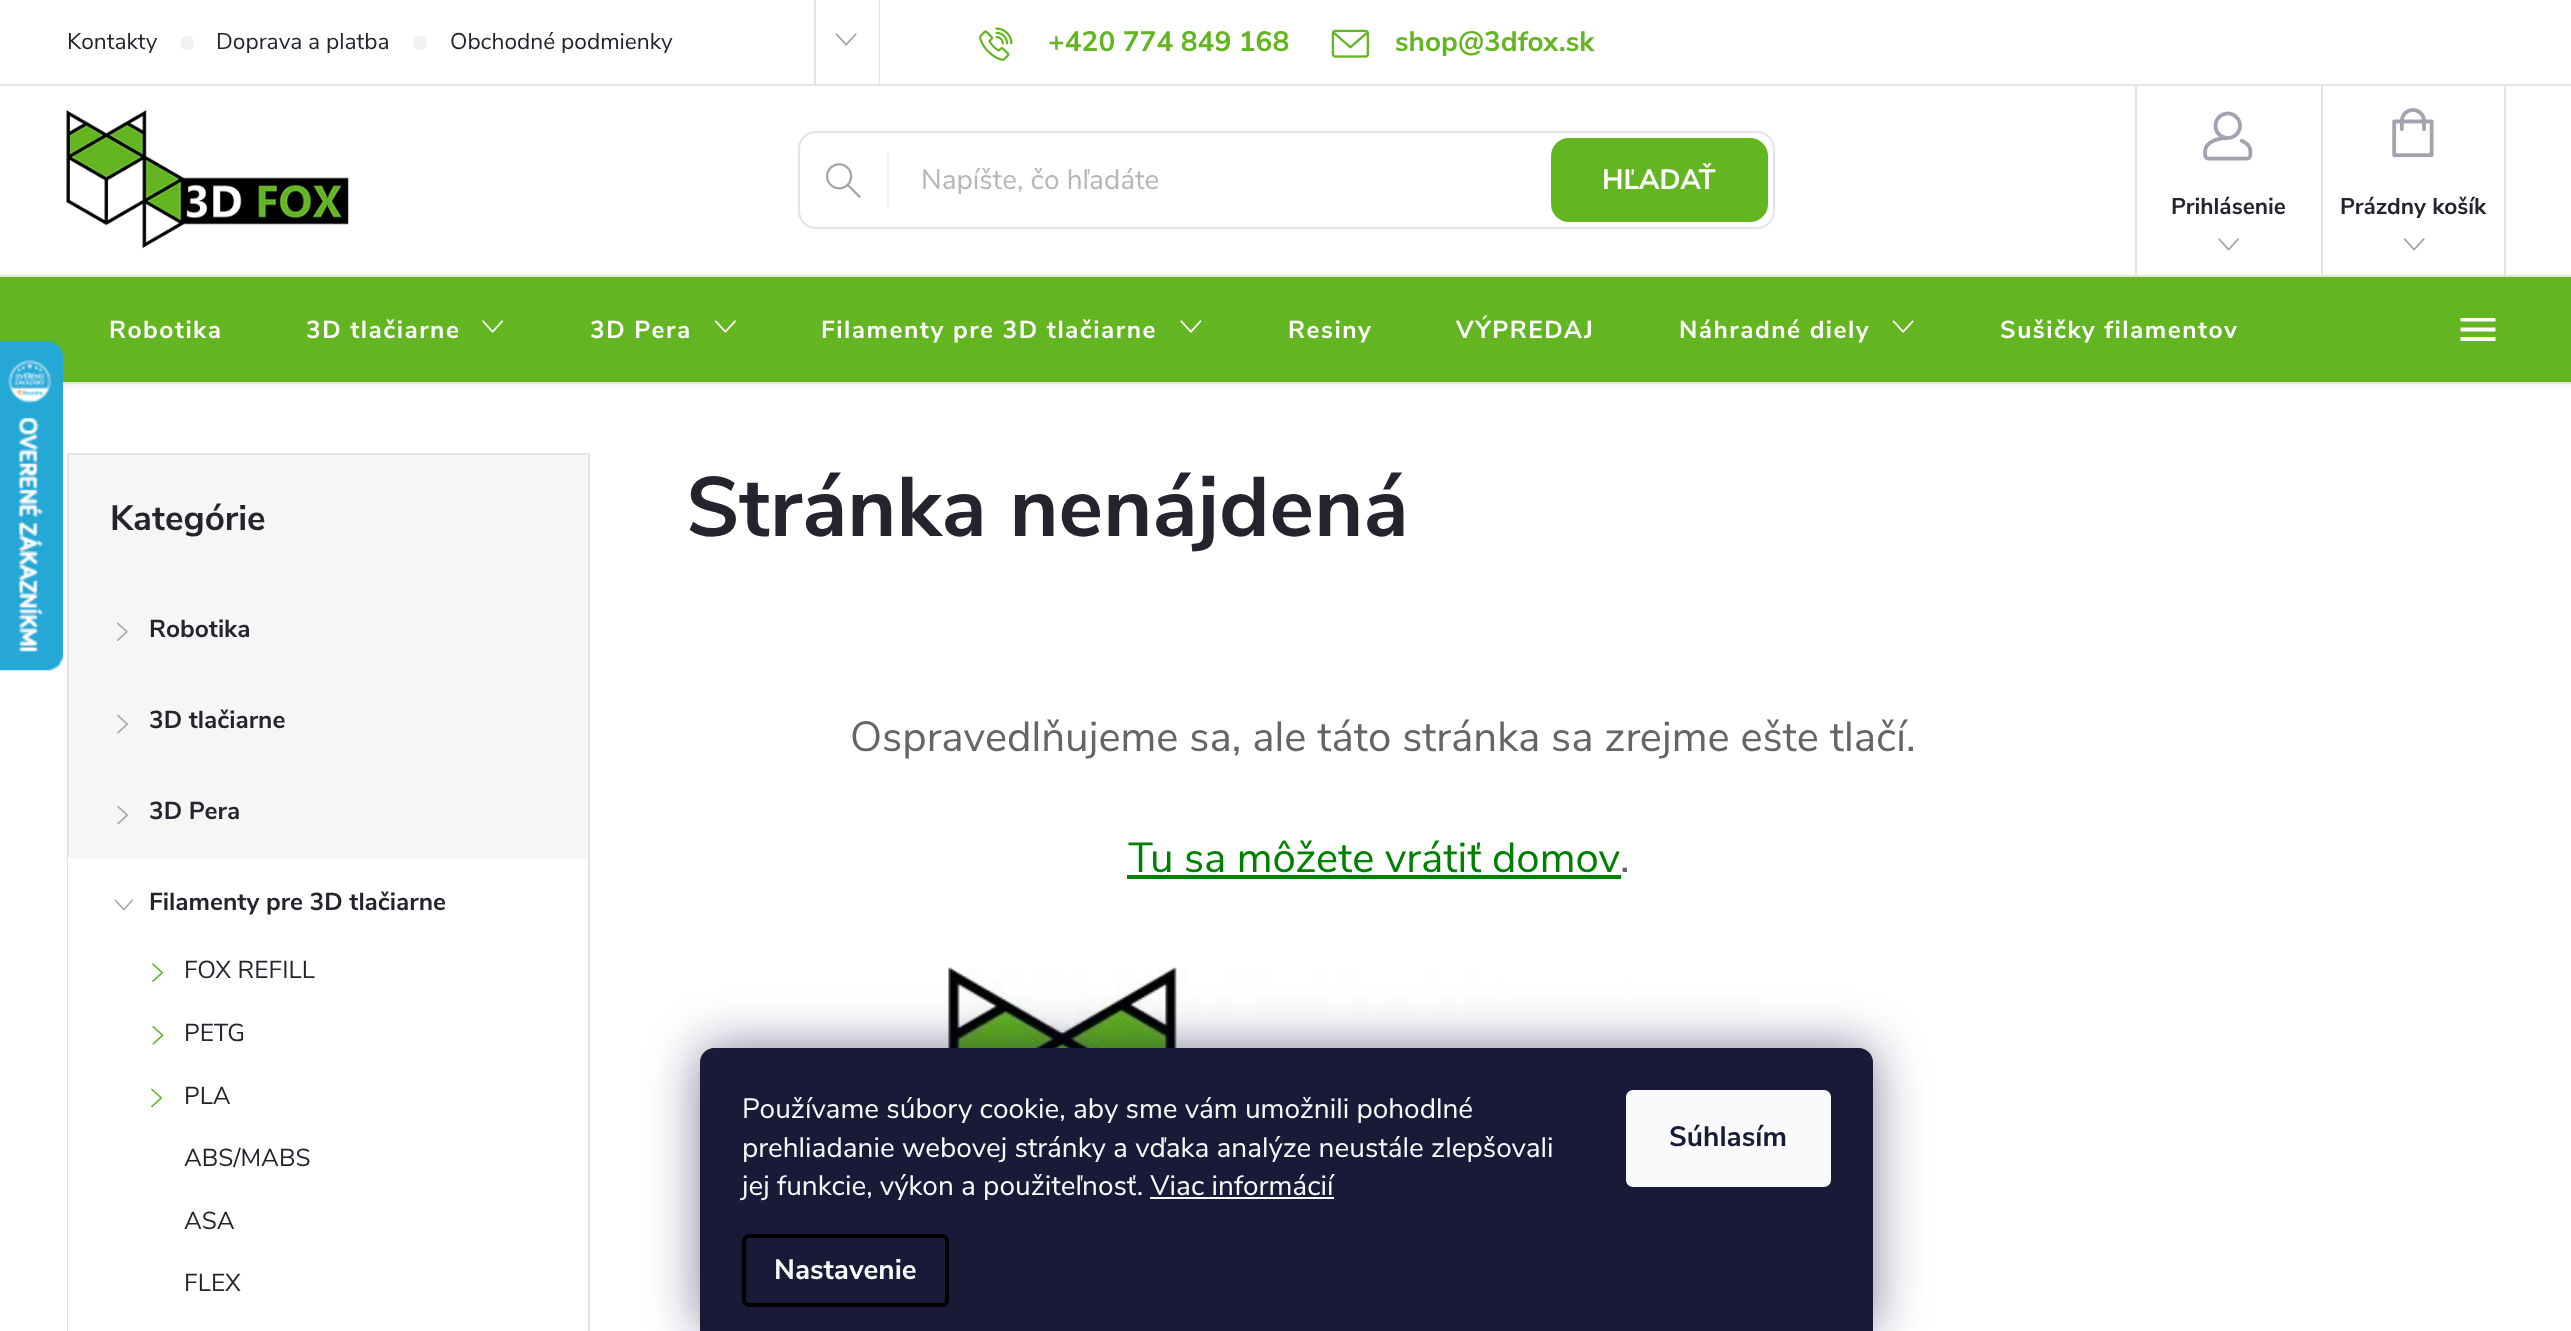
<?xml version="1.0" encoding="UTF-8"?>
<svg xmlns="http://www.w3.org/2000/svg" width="2571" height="1331">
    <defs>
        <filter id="blur1" x="-50%" y="-200%" width="200%" height="500%"><feGaussianBlur stdDeviation="2"/></filter>
        <filter id="blur2" x="-50%" y="-200%" width="200%" height="500%"><feGaussianBlur stdDeviation="26"/></filter>
    </defs>
    <rect width="100%" height="100%" fill="#FFFFFF"/>
    <rect x="2135" y="86" width="2" height="189" fill="#E4E4E4"/>
    <rect x="2504" y="86" width="2" height="189" fill="#E4E4E4"/>
    <rect x="2321" y="86" width="2" height="189" fill="#E4E4E4"/>
    <rect x="0" y="278" width="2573" height="109" fill="#000000" fill-opacity="0.05" filter="url(#blur1)"/>
    <rect x="0" y="277" width="2571" height="105" fill="#63B521"/>
    <image x="0" y="341" width="63" height="330" href="img_01.png"/>
    <rect x="0" y="84" width="2571" height="2" fill="#E4E4E4"/>
    <text x="67" y="49" font-family="Nunito Sans" font-size="22.75" fill="#24242E">Kontakty</text>
    <image x="180" y="36" width="14" height="14" href="img_02.png"/>
    <text x="216" y="49" font-family="Nunito Sans" font-size="22.75" fill="#24242E">Doprava a platba</text>
    <image x="413" y="36" width="14" height="14" href="img_03.png"/>
    <text x="450" y="49" font-family="Nunito Sans" font-size="22.75" fill="#24242E">Obchodné podmienky</text>
    <rect x="879" y="0" width="1" height="84" fill="#E4E4E4"/>
    <rect x="814" y="0" width="2" height="84" fill="#E4E4E4"/>
    <image x="835" y="33" width="22" height="13" href="img_04.png"/>
    <image x="979" y="27" width="34" height="34" href="img_05.png"/>
    <text x="1048" y="51" font-family="Nunito Sans" font-size="28" font-weight="700" fill="#63B521">+420 774 849 168</text>
    <image x="1331" y="29" width="38" height="29" href="img_06.png"/>
    <text x="1395" y="51" font-family="Nunito Sans" font-size="28" font-weight="700" fill="#63B521">shop@3dfox.sk</text>
    <image x="66" y="110" width="283" height="139" href="img_07.png"/>
    <rect x="799" y="132" width="975" height="96" rx="17" fill="none" stroke="#E4E4E4" stroke-width="2"/>
    <rect x="887" y="152" width="2" height="56" fill="#F1F1F1"/>
    <image x="826" y="163" width="35" height="35" href="img_08.png"/>
    <text x="921" y="189" font-family="Nunito Sans" font-size="28" fill="#B6B6B6">Napíšte, čo hľadáte</text>
    <rect x="1552" y="139" width="215" height="82" rx="17" fill="#63B521" stroke="#63B521" stroke-width="2"/>
    <text x="1602" y="189" font-family="Nunito Sans" font-size="28" font-weight="700" fill="#FFFFFF">HĽADAŤ</text>
    <image x="2203" y="111" width="50" height="50" href="img_09.png"/>
    <text x="2171" y="214" font-family="Nunito Sans" font-size="22.75" font-weight="700" fill="#24242E">Prihlásenie</text>
    <image x="2218" y="238" width="21" height="13" href="img_10.png"/>
    <image x="2392" y="108" width="42" height="50" href="img_11.png"/>
    <text x="2340" y="214" font-family="Nunito Sans" font-size="22.75" font-weight="700" fill="#24242E">Prázdny košík</text>
    <image x="2403" y="238" width="22" height="13" href="img_12.png"/>
    <text x="109" y="338" font-family="Nunito Sans" font-size="24.5" font-weight="700" letter-spacing="1.5" fill="#FFFFFF">Robotika</text>
    <text x="306" y="338" font-family="Nunito Sans" font-size="24.5" font-weight="700" letter-spacing="1.5" fill="#FFFFFF">3D tlačiarne</text>
    <image x="482" y="320" width="22" height="13" href="img_13.png"/>
    <text x="590" y="338" font-family="Nunito Sans" font-size="24.5" font-weight="700" letter-spacing="1.5" fill="#FFFFFF">3D Pera</text>
    <image x="714" y="320" width="22" height="13" href="img_14.png"/>
    <text x="821" y="338" font-family="Nunito Sans" font-size="24.5" font-weight="700" letter-spacing="1.5" fill="#FFFFFF">Filamenty pre 3D tlačiarne</text>
    <image x="1180" y="320" width="22" height="13" href="img_15.png"/>
    <text x="1288" y="338" font-family="Nunito Sans" font-size="24.5" font-weight="700" letter-spacing="1.5" fill="#FFFFFF">Resiny</text>
    <text x="1456" y="338" font-family="Nunito Sans" font-size="24.5" font-weight="700" letter-spacing="1.5" fill="#FFFFFF">VÝPREDAJ</text>
    <text x="1679" y="338" font-family="Nunito Sans" font-size="24.5" font-weight="700" letter-spacing="1.5" fill="#FFFFFF">Náhradné diely</text>
    <image x="1892" y="320" width="22" height="13" href="img_16.png"/>
    <text x="2000" y="338" font-family="Nunito Sans" font-size="24.5" font-weight="700" letter-spacing="1.5" fill="#FFFFFF">Sušičky filamentov</text>
    <path d="M 2460.5 341 H 2495.5 V 337 H 2460.5 Z M 2460.5 331.5 H 2495.5 V 327.5 H 2460.5 Z M 2460.5 318 V 321.5 H 2495.5 V 318 Z" fill="#FFFFFF"/>
    <rect x="0" y="275" width="2571" height="2" fill="#E4E4E4"/>
    <rect x="63" y="382" width="2508" height="2" fill="#E4E4E4"/>
    <rect x="69" y="455" width="519" height="403" fill="#F6F6F6"/>
    <rect x="68" y="454" width="521" height="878" fill="none" stroke="#E4E4E4" stroke-width="2"/>
    <text x="110" y="530" font-family="Nunito Sans" font-size="35" font-weight="700" fill="#24242E">Kategórie</text>
    <image x="116" y="622" width="12" height="19" href="img_17.png"/>
    <text x="149" y="637" font-family="Nunito Sans" font-size="24.5" font-weight="700" fill="#24242E">Robotika</text>
    <image x="117" y="714" width="11" height="20" href="img_18.png"/>
    <text x="149" y="728" font-family="Nunito Sans" font-size="24.5" font-weight="700" fill="#24242E">3D tlačiarne</text>
    <image x="117" y="805" width="11" height="20" href="img_18.png"/>
    <text x="149" y="819" font-family="Nunito Sans" font-size="24.5" font-weight="700" fill="#24242E">3D Pera</text>
    <rect x="68" y="858" width="1" height="473" fill="#FFFFFF"/>
    <image x="114" y="899" width="20" height="12" href="img_19.png"/>
    <text x="149" y="910" font-family="Nunito Sans" font-size="24.5" font-weight="700" fill="#24242E">Filamenty pre 3D tlačiarne</text>
    <image x="152" y="963" width="11" height="19" href="img_20.png"/>
    <text x="184" y="978" font-family="Nunito Sans" font-size="24.5" fill="#24242E">FOX REFILL</text>
    <image x="152" y="1026" width="12" height="19" href="img_21.png"/>
    <text x="184" y="1041" font-family="Nunito Sans" font-size="24.5" fill="#24242E">PETG</text>
    <image x="151" y="1088" width="11" height="20" href="img_22.png"/>
    <text x="184" y="1104" font-family="Nunito Sans" font-size="24.5" fill="#24242E">PLA</text>
    <text x="184" y="1166" font-family="Nunito Sans" font-size="24.5" fill="#24242E">ABS/MABS</text>
    <text x="184" y="1229" font-family="Nunito Sans" font-size="24.5" fill="#24242E">ASA</text>
    <text x="184" y="1291" font-family="Nunito Sans" font-size="24.5" fill="#24242E">FLEX</text>
    <text x="686" y="536" font-family="Nunito Sans" font-size="84" font-weight="700" fill="#24242E">Stránka nenájdená</text>
    <text x="850" y="751" font-family="Nunito Sans" font-size="42" fill="#656565">Ospravedlňujeme sa, ale táto stránka sa zrejme ešte tlačí.</text>
    <text x="1128" y="872" word-spacing="-0.5" font-family="Nunito Sans" font-size="42" fill="#008000">Tu sa môžete vrátiť domov</text>
    <text x="1620" y="872" font-family="Nunito Sans" font-size="42" fill="#656565">.</text>
    <rect x="1127" y="875" width="494" height="4" fill="#008000"/>
    <image x="948" y="967" width="812" height="81" href="img_23.png"/>
    <rect x="700" y="1048" width="1173" height="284" rx="14" fill="#1B1939" fill-opacity="0.5" filter="url(#blur2)"/>
    <path d="M 714 1048 H 1859 C 1866.5 1048 1873 1054.5 1873 1062 V 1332 H 700 V 1062 C 700 1054.5 706.5 1048 714 1048 Z" fill="#1A1937"/>
    <text font-family="Nunito Sans" font-size="28" fill="#F8FAFB">
        <tspan x="742" y="1118">Používame súbory cookie, aby sme vám umožnili pohodlné</tspan>
        <tspan x="742" y="1157">prehliadanie webovej stránky a vďaka analýze neustále zlepšovali</tspan>
        <tspan x="742" y="1195">jej funkcie, výkon a použiteľnosť. Viac informácií</tspan>
    </text>
    <rect x="1150" y="1197" width="184" height="2" fill="#F8FAFB"/>
    <rect x="744" y="1236" width="203" height="69" rx="5" fill="none" stroke="#000000" stroke-width="4"/>
    <text x="774" y="1279" font-family="Nunito Sans" font-size="28" font-weight="700" fill="#F8FAFB">Nastavenie</text>
    <rect x="1626" y="1090" width="205" height="97" rx="7" fill="#F8FAFB"/>
    <text x="1669" y="1146" font-family="Nunito Sans" font-size="28" font-weight="700" fill="#1A1937">Súhlasím</text>
</svg>
